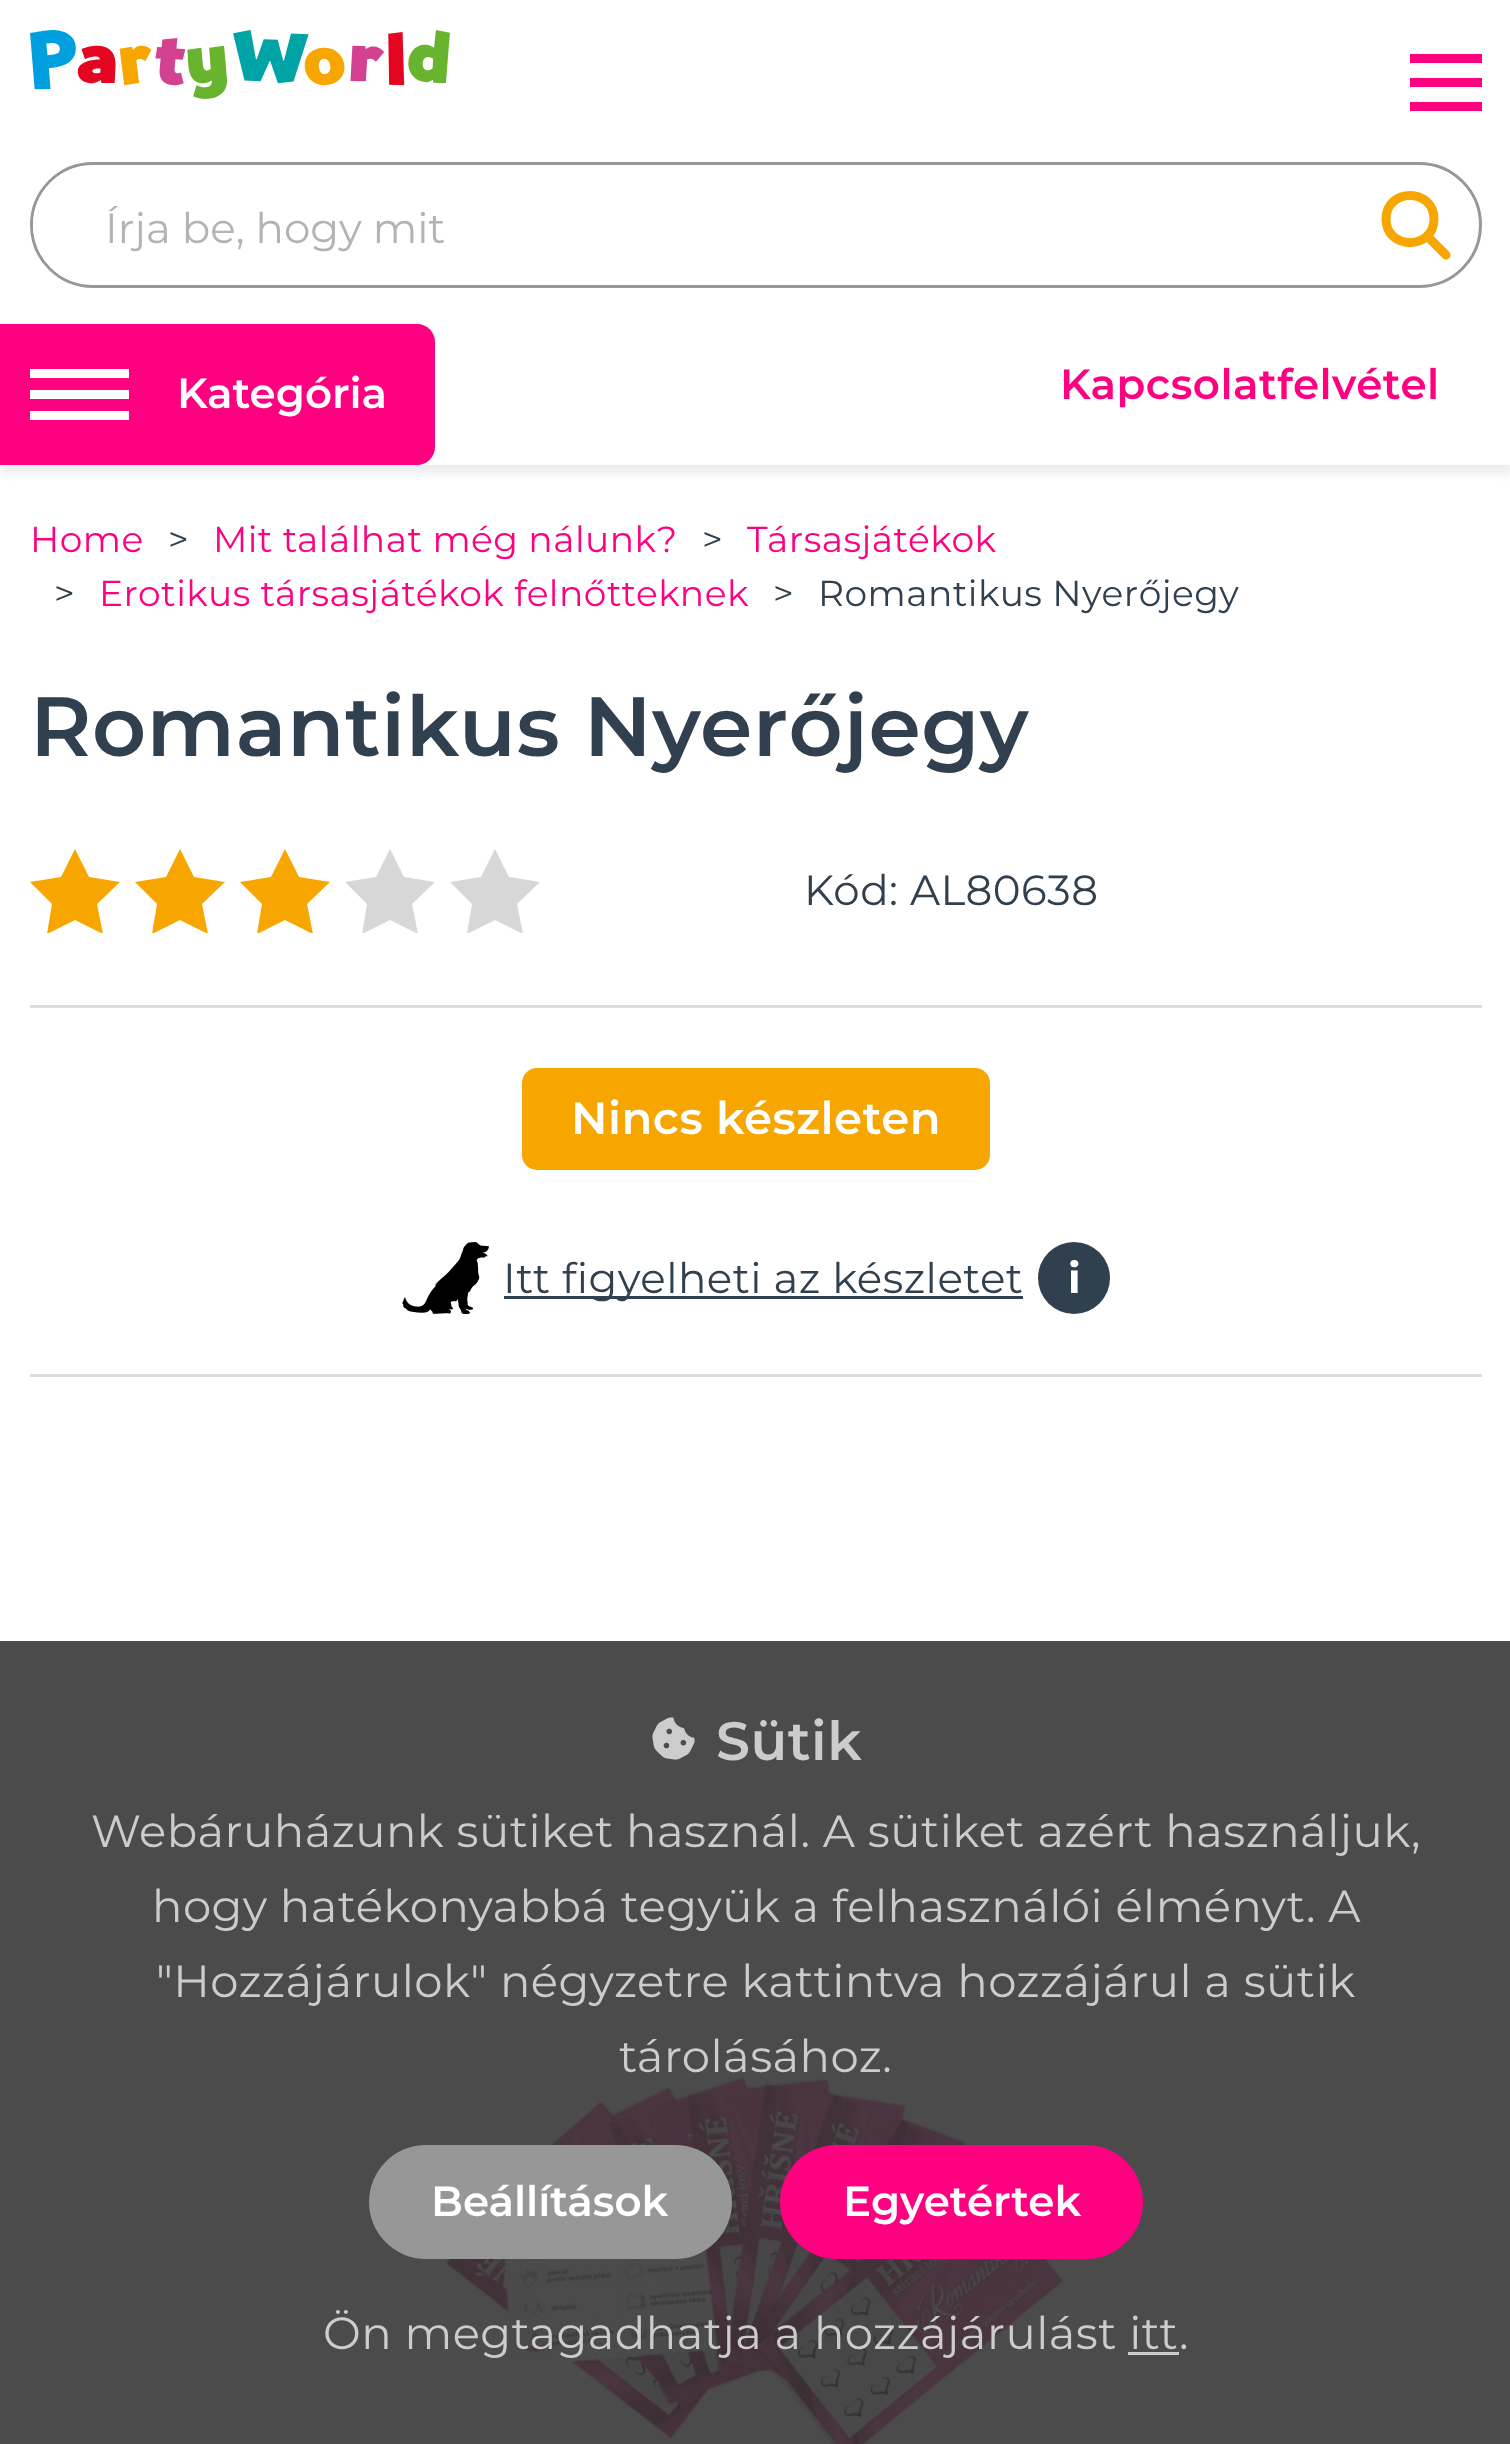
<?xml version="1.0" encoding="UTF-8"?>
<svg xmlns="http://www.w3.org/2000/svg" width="1510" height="2444">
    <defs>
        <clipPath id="clip1"><rect x="33" y="165" width="1446" height="120" rx="60"/></clipPath>
        <clipPath id="clip2"><rect x="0" y="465" width="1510" height="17"/></clipPath>
        <filter id="blur1" x="-50%" y="-200%" width="200%" height="500%"><feGaussianBlur stdDeviation="4.5"/></filter>
        <clipPath id="clip3"><rect x="30" y="849" width="90" height="84"/></clipPath>
        <clipPath id="clip4"><rect x="135" y="849" width="90" height="84"/></clipPath>
        <clipPath id="clip5"><rect x="240" y="849" width="90" height="84"/></clipPath>
        <clipPath id="clip6"><rect x="345" y="849" width="90" height="84"/></clipPath>
        <clipPath id="clip7"><rect x="450" y="849" width="90" height="84"/></clipPath>
    </defs>
    <rect width="100%" height="100%" fill="#FFFFFF"/>
    <rect x="0" y="1641" width="1510" height="803" fill="#4B4B4B"/>
    <image x="30" y="30" width="420" height="69" href="img_01.png"/>
    <rect x="31.5" y="163.5" width="1449" height="123" rx="61.5" fill="none" stroke="#979797" stroke-width="3"/>
    <g clip-path="url(#clip1)">
        <rect x="33" y="168" width="1320" height="111" rx="15" fill="#FFFFFF"/>
    </g>
    <text x="105" y="243" font-family="Montserrat" font-size="42" fill="#B3B3B3">Írja be, hogy mit</text>
    <path d="M 1434 219 C 1434 250.5 1386 250.5 1386 219 C 1386 187.5 1434 187.5 1434 219 Z" fill="none" stroke="#F7A600" stroke-width="9" stroke-linecap="round" stroke-linejoin="round"/>
    <path d="M 1446 255 L 1428 237" fill="none" stroke="#F7A600" stroke-width="9" stroke-linecap="round" stroke-linejoin="round"/>
    <g clip-path="url(#clip2)">
        <rect x="0" y="333" width="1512" height="141" fill="#DCDCDC" fill-opacity="0.5" filter="url(#blur1)"/>
    </g>
    <text x="1060" y="399" font-family="Montserrat" font-size="42" font-weight="600" letter-spacing="0.48" fill="#FF0180">Kapcsolatfelvétel</text>
    <rect x="1410" y="54" width="72" height="9" fill="#FF0180"/>
    <rect x="1410" y="78" width="72" height="9" fill="#FF0180"/>
    <rect x="1410" y="102" width="72" height="9" fill="#FF0180"/>
    <rect x="0" y="324" width="30" height="141" fill="#FF0180"/>
    <path d="M 30 324 H 417 C 427 324 435 332 435 342 V 447 C 435 457 427 465 417 465 H 30 Z" fill="#FF0180"/>
    <rect x="30" y="369" width="99" height="9" fill="#FFFFFF"/>
    <rect x="30" y="390" width="99" height="9" fill="#FFFFFF"/>
    <rect x="30" y="411" width="99" height="9" fill="#FFFFFF"/>
    <text x="177" y="408" font-family="Montserrat" font-size="42" font-weight="600" fill="#FFFFFF">Kategória</text>
    <text x="30" y="552" font-family="Montserrat" font-size="36" letter-spacing="0.48" fill="#FF0180">Home</text>
    <text x="168" y="552" font-family="Montserrat" font-size="36" letter-spacing="0.48" fill="#31404E">&gt;</text>
    <text x="213" y="552" font-family="Montserrat" font-size="36" letter-spacing="0.48" fill="#FF0180">Mit találhat még nálunk?</text>
    <text x="702" y="552" font-family="Montserrat" font-size="36" letter-spacing="0.48" fill="#31404E">&gt;</text>
    <text x="747" y="552" font-family="Montserrat" font-size="36" letter-spacing="0.48" fill="#FF0180">Társasjátékok</text>
    <text x="54" y="606" font-family="Montserrat" font-size="36" letter-spacing="0.48" fill="#31404E">&gt;</text>
    <text x="99" y="606" font-family="Montserrat" font-size="36" letter-spacing="0.48" fill="#FF0180">Erotikus társasjátékok felnőtteknek</text>
    <text x="773" y="606" font-family="Montserrat" font-size="36" letter-spacing="0.48" fill="#31404E">&gt;</text>
    <text x="818" y="606" font-family="Montserrat" font-size="36" letter-spacing="0.48" fill="#31404E">Romantikus Nyerőjegy</text>
    <text x="30" y="756" font-family="Montserrat" font-size="84" font-weight="600" letter-spacing="0.48" fill="#31404E">Romantikus Nyerőjegy</text>
    <g clip-path="url(#clip3)">
        <path d="M 75 849 L 89 877 L 120 882 L 97 904 L 103 934 L 75 920 L 47 934 L 52 904 L 30 882 L 61 877 Z" fill="#F7A600"/>
    </g>
    <g clip-path="url(#clip4)">
        <path d="M 180 849 L 194 877 L 225 882 L 202 904 L 208 934 L 180 920 L 152 934 L 157 904 L 135 882 L 166 877 Z" fill="#F7A600"/>
    </g>
    <g clip-path="url(#clip5)">
        <path d="M 285 849 L 299 877 L 330 882 L 307 904 L 313 934 L 285 920 L 257 934 L 262 904 L 240 882 L 271 877 Z" fill="#F7A600"/>
    </g>
    <g clip-path="url(#clip6)">
        <path d="M 390 849 L 404 877 L 435 882 L 412 904 L 418 934 L 390 920 L 362 934 L 367 904 L 345 882 L 376 877 Z" fill="#D7D7D7"/>
    </g>
    <g clip-path="url(#clip7)">
        <path d="M 495 849 L 509 877 L 540 882 L 517 904 L 523 934 L 495 920 L 467 934 L 472 904 L 450 882 L 481 877 Z" fill="#D7D7D7"/>
    </g>
    <text x="804" y="905" font-family="Montserrat" font-size="42" letter-spacing="0.48" fill="#31404E">Kód: AL80638</text>
    <rect x="30" y="1005" width="1452" height="3" fill="#DCDCDC"/>
    <rect x="30" y="1374" width="1452" height="3" fill="#DCDCDC"/>
    <rect x="522" y="1068" width="468" height="102" rx="15" fill="#F7A600"/>
    <text x="571" y="1134" font-family="Montserrat" font-size="45" font-weight="600" letter-spacing="0.48" fill="#FFFFFF">Nincs készleten</text>
    <image x="402" y="1242" width="87" height="72" href="img_02.png"/>
    <rect x="504" y="1296" width="519" height="3" fill="#31404E"/>
    <text x="503" y="1293" font-family="Montserrat" font-size="42" letter-spacing="0.48" fill="#31404E">Itt figyelheti az készletet</text>
    <circle cx="1074" cy="1278" r="36" fill="#31404E"/>
    <text x="1068" y="1293" font-family="Montserrat" font-size="42" font-weight="700" letter-spacing="0.48" fill="#FFFFFF">i</text>
    <image x="437" y="2070" width="635" height="374" href="img_03.png"/>
    <image x="652" y="1717" width="43" height="43" href="img_04.png"/>
    <text x="716" y="1760" font-family="Montserrat" font-size="54" font-weight="600" letter-spacing="0.48" fill="#CCCCCC">Sütik</text>
    <text x="91" y="1847" font-family="Montserrat" font-size="45" letter-spacing="0.48" fill="#CCCCCC">Webáruházunk sütiket használ. A sütiket azért használjuk,</text>
    <text x="152" y="1922" font-family="Montserrat" font-size="45" letter-spacing="0.48" fill="#CCCCCC">hogy hatékonyabbá tegyük a felhasználói élményt. A</text>
    <text x="156" y="1997" font-family="Montserrat" font-size="45" letter-spacing="0.48" fill="#CCCCCC">"Hozzájárulok" négyzetre kattintva hozzájárul a sütik</text>
    <text x="619" y="2072" font-family="Montserrat" font-size="45" letter-spacing="0.48" fill="#CCCCCC">tárolásához.</text>
    <rect x="369" y="2145" width="363" height="114" rx="57" fill="#979797"/>
    <text x="431" y="2216" font-family="Montserrat" font-size="42" font-weight="600" fill="#FFFFFF">Beállítások</text>
    <rect x="780" y="2145" width="363" height="114" rx="57" fill="#FF0180"/>
    <text x="843" y="2216" font-family="Montserrat" font-size="42" font-weight="600" fill="#FFFFFF">Egyetértek</text>
    <text x="323" y="2349" font-family="Montserrat" font-size="45" letter-spacing="0.48" fill="#CCCCCC">Ön megtagadhatja a hozzájárulást itt</text>
    <text x="1179" y="2349" font-family="Montserrat" font-size="45" letter-spacing="0.48" fill="#CCCCCC">.</text>
    <rect x="1128" y="2352" width="51" height="3" fill="#CCCCCC"/>
</svg>
